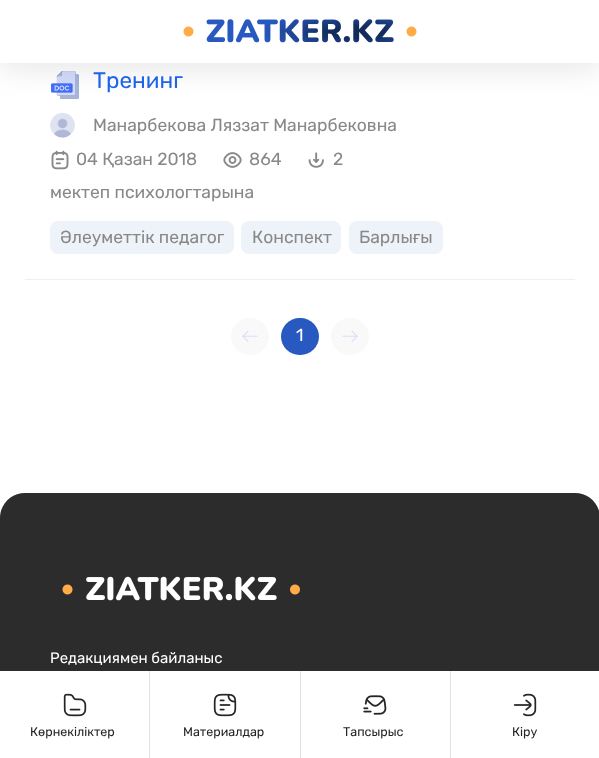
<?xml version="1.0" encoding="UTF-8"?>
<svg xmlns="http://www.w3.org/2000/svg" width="599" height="758">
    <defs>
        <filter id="blur1" x="-50%" y="-200%" width="200%" height="500%"><feGaussianBlur stdDeviation="15"/></filter>
    </defs>
    <rect width="100%" height="100%" fill="#FFFFFF"/>
    <image x="51" y="71" width="28" height="28" href="img_02.png"/>
    <image x="50" y="112" width="25" height="26" href="img_03.png"/>
    <rect x="0" y="5" width="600" height="63" fill="#000000" fill-opacity="0.1" filter="url(#blur1)"/>
    <rect x="0" y="0" width="599" height="63" fill="#FFFFFF"/>
    <image x="183" y="19" width="234" height="24" href="img_01.png"/>
    <rect x="25" y="279" width="550" height="1" fill="#F0F0F0"/>
    <text x="93" y="88" font-family="Rubik" font-size="22.5" fill="#1E63E9">Тренинг</text>
    <text x="93" y="131" font-family="Rubik" font-size="17.5" fill="#888888">Манарбекова Ляззат Манарбековна</text>
    <image x="51" y="150" width="18" height="20" href="img_04.png"/>
    <text x="76" y="165" font-family="Rubik" font-size="17.5" fill="#888888">04 Қазан 2018</text>
    <image x="223" y="152" width="19" height="16" href="img_05.png"/>
    <text x="249" y="165" font-family="Rubik" font-size="17.5" fill="#888888">864</text>
    <image x="308" y="152" width="16" height="16" href="img_06.png"/>
    <text x="333" y="165" font-family="Rubik" font-size="17.5" fill="#888888">2</text>
    <text x="50" y="198" font-family="Rubik" font-size="17.5" fill="#888888">мектеп психологтарына</text>
    <rect x="50" y="221" width="184" height="33" rx="8" fill="#EEF2F9"/>
    <text x="60" y="243" font-family="Rubik" font-size="17.5" fill="#888888">Әлеуметтік педагог</text>
    <rect x="241" y="221" width="100" height="33" rx="8" fill="#EEF2F9"/>
    <text x="252" y="243" font-family="Rubik" font-size="17.5" fill="#888888">Конспект</text>
    <rect x="349" y="221" width="94" height="33" rx="8" fill="#EEF2F9"/>
    <text x="359" y="243" font-family="Rubik" font-size="17.5" fill="#888888">Барлығы</text>
    <rect x="231" y="318" width="38" height="37" rx="18.5" fill="#F9F9F9"/>
    <image x="242" y="330" width="16" height="12" href="img_07.png"/>
    <rect x="281" y="318" width="38" height="37" rx="18.5" fill="#2859C0"/>
    <text x="296" y="341" font-family="Rubik" font-size="17.5" fill="#FFFFFF">1</text>
    <rect x="331" y="318" width="38" height="37" rx="18.5" fill="#F9F9F9"/>
    <image x="342" y="330" width="16" height="12" href="img_08.png"/>
    <path d="M 25 493 H 575 C 589 493 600 504 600 518 V 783 H 0 V 518 C 0 504 11 493 25 493 Z" fill="#2C2C2C"/>
    <rect x="149" y="671" width="302" height="87" fill="#DCE3ED"/>
    <rect x="0" y="671" width="149" height="87" fill="#FFFFFF"/>
    <image x="63" y="693" width="24" height="24" href="img_09.png"/>
    <text x="30" y="736" font-family="Rubik" font-size="12.5" fill="#252525">Көрнекіліктер</text>
    <rect x="150" y="671" width="150" height="87" fill="#FFFFFF"/>
    <image x="213" y="693" width="24" height="24" href="img_10.png"/>
    <text x="183" y="736" font-family="Rubik" font-size="12.5" fill="#252525">Материалдар</text>
    <rect x="301" y="671" width="149" height="87" fill="#FFFFFF"/>
    <image x="363" y="695" width="24" height="20" href="img_11.png"/>
    <text x="343" y="736" font-family="Rubik" font-size="12.5" fill="#252525">Тапсырыс</text>
    <rect x="451" y="671" width="148" height="87" fill="#FFFFFF"/>
    <image x="513" y="693" width="24" height="24" href="img_12.png"/>
    <text x="512" y="736" font-family="Rubik" font-size="12.5" fill="#252525">Кіру</text>
    <image x="62" y="576" width="238" height="25" href="img_13.png"/>
    <text x="50" y="663" font-family="Rubik" font-size="15" fill="#FFFFFF">Редакциямен байланыс</text>
</svg>
